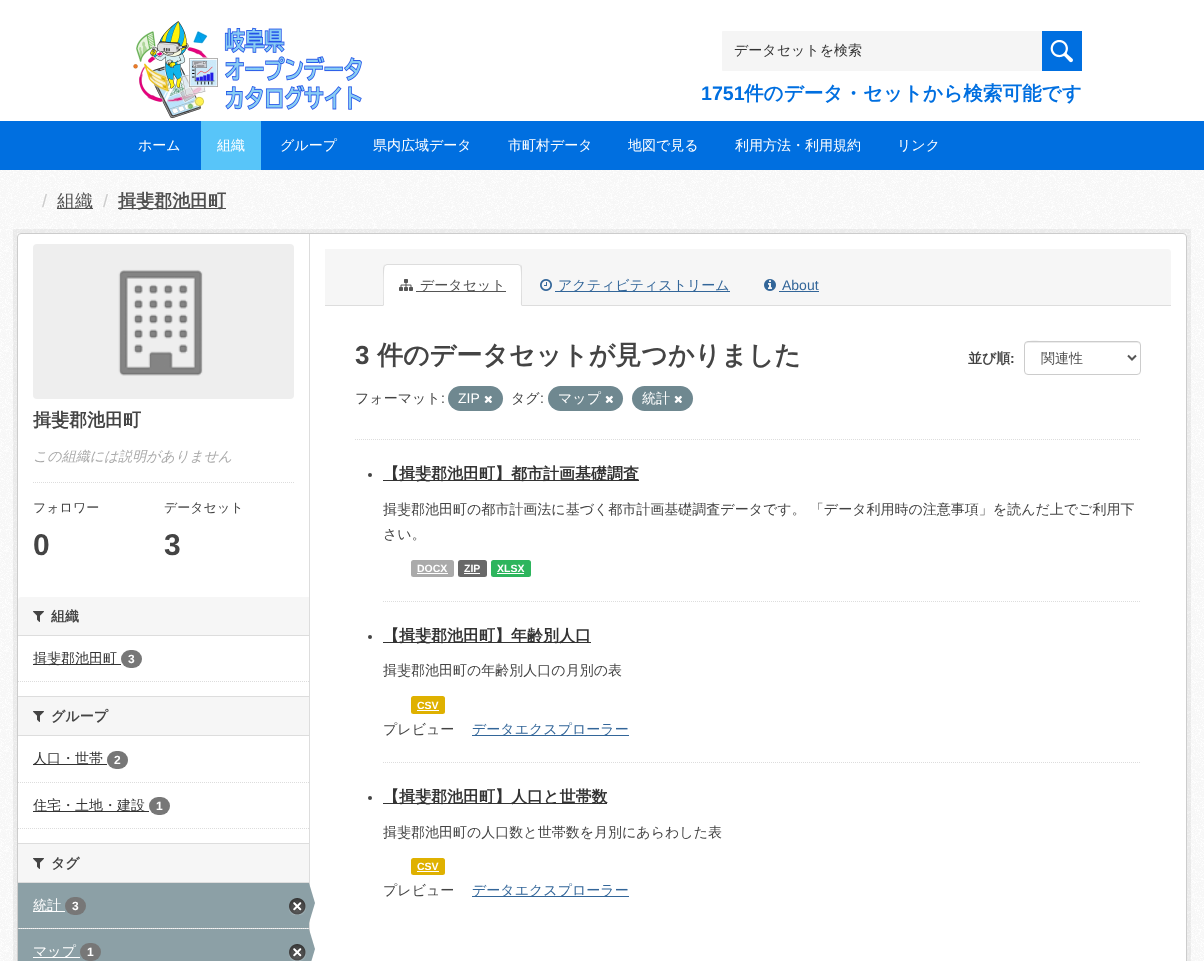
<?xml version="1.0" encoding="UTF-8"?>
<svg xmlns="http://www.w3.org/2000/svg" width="1204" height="961">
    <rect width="100%" height="100%" fill="#FFFFFF"/>
    <image x="133" y="21" width="229" height="98" href="img_01.png"/>
    <rect x="722" y="31" width="320" height="40" rx="1" fill="#F5F5F5"/>
    <text x="734" y="55" font-family="WenQuanYi Zen Hei" font-size="14" font-weight="500" fill="#333333">データセットを検索</text>
    <rect x="1042" y="31" width="40" height="40" fill="#006FE0"/>
    <image x="1050" y="40" width="23" height="23" href="img_02.png"/>
    <text x="701" y="100" font-family="Liberation Sans" font-size="19.6" font-weight="700" fill="#006FE0">1751</text>
    <text x="744" y="100" font-family="WenQuanYi Zen Hei" font-size="19.6" font-weight="700" fill="#006FE0">件のデータ・セットから検索可能です</text>
    <rect x="0" y="121" width="1204" height="49" fill="#006FE0"/>
    <text x="138" y="150" font-family="WenQuanYi Zen Hei" font-size="14" font-weight="500" fill="#FFFFFF">ホーム</text>
    <rect x="201" y="121" width="60" height="49" fill="#58C5F9"/>
    <text x="217" y="150" font-family="WenQuanYi Zen Hei" font-size="14" font-weight="500" fill="#FFFFFF">組織</text>
    <text x="280" y="150" font-family="WenQuanYi Zen Hei" font-size="14" font-weight="500" fill="#FFFFFF">グループ</text>
    <text x="373" y="150" font-family="WenQuanYi Zen Hei" font-size="14" font-weight="500" fill="#FFFFFF">県内広域データ</text>
    <text x="508" y="150" font-family="WenQuanYi Zen Hei" font-size="14" font-weight="500" fill="#FFFFFF">市町村データ</text>
    <text x="628" y="150" font-family="WenQuanYi Zen Hei" font-size="14" font-weight="500" fill="#FFFFFF">地図で見る</text>
    <text x="735" y="150" font-family="WenQuanYi Zen Hei" font-size="14" font-weight="500" fill="#FFFFFF">利用方法・利用規約</text>
    <text x="897" y="150" font-family="WenQuanYi Zen Hei" font-size="14" font-weight="500" fill="#FFFFFF">リンク</text>
    <image x="0" y="170" width="1204" height="791" href="img_03.png"/>
    <text x="42" y="207" font-family="Liberation Sans" font-size="18" fill="#CCCCCC">/</text>
    <rect x="57" y="208" width="36" height="1" fill="#505050"/>
    <text x="57" y="207" font-family="WenQuanYi Zen Hei" font-size="18" font-weight="500" fill="#505050">組織</text>
    <text x="103" y="207" font-family="Liberation Sans" font-size="18" fill="#CCCCCC">/</text>
    <rect x="118" y="208" width="108" height="1" fill="#505050"/>
    <text x="118" y="207" font-family="WenQuanYi Zen Hei" font-size="18" font-weight="700" fill="#505050">揖斐郡池田町</text>
    <rect x="15" y="231" width="1174" height="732" fill="none" stroke="#000000" stroke-opacity="0.05" stroke-width="4"/>
    <rect x="17.5" y="233.5" width="1169" height="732" rx="3.5" fill="#FFFFFF" stroke="#CCCCCC"/>
    <image x="33" y="244" width="261" height="155" href="img_04.png"/>
    <text x="33" y="426" font-family="WenQuanYi Zen Hei" font-size="18" font-weight="700" fill="#444444">揖斐郡池田町</text>
    <text x="33" y="461" font-family="WenQuanYi Zen Hei" font-size="14" font-weight="500" font-style="italic" fill="#AAAAAA">この組織には説明がありません</text>
    <path d="M 33 482.5 H 294" fill="none" stroke="#DDDDDD" stroke-dasharray="1 1"/>
    <text x="33" y="512" font-family="WenQuanYi Zen Hei" font-size="13" font-weight="500" fill="#444444">フォロワー</text>
    <text x="33" y="555" font-family="Liberation Sans" font-size="30" font-weight="700" fill="#444444">0</text>
    <text x="164" y="512" font-family="WenQuanYi Zen Hei" font-size="13" font-weight="500" fill="#444444">データセット</text>
    <text x="164" y="555" font-family="Liberation Sans" font-size="30" font-weight="700" fill="#444444">3</text>
    <path d="M 21 597 H 309 V 636 H 18 V 600 C 18 598.5 19.5 597 21 597 Z" fill="#F6F6F6"/>
    <rect x="18" y="635" width="291" height="1" fill="#DDDDDD"/>
    <image x="33" y="611" width="11" height="11" href="img_05.png"/>
    <text x="51" y="621" font-family="WenQuanYi Zen Hei" font-size="14" font-weight="700" fill="#444444">組織</text>
    <rect x="33" y="664" width="88" height="1" fill="#333333"/>
    <text x="33" y="663" font-family="WenQuanYi Zen Hei" font-size="14" font-weight="500" fill="#333333">揖斐郡池田町</text>
    <rect x="121" y="650" width="21" height="18" rx="9" fill="#777777"/>
    <text x="128" y="663" font-family="Liberation Sans" font-size="12" font-weight="700" fill="#FFFFFF">3</text>
    <path d="M 18 681.5 H 309" fill="none" stroke="#DDDDDD" stroke-dasharray="1 1"/>
    <rect x="18" y="697" width="291" height="38" fill="#F6F6F6"/>
    <rect x="18" y="696" width="291" height="1" fill="#DDDDDD"/>
    <rect x="18" y="735" width="291" height="1" fill="#DDDDDD"/>
    <image x="33" y="711" width="11" height="11" href="img_05.png"/>
    <text x="51" y="721" font-family="WenQuanYi Zen Hei" font-size="14" font-weight="700" fill="#444444">グループ</text>
    <path d="M 18 782.5 H 309" fill="none" stroke="#DDDDDD" stroke-dasharray="1 1"/>
    <rect x="33" y="764" width="74" height="1" fill="#333333"/>
    <text x="33" y="763" font-family="WenQuanYi Zen Hei" font-size="14" font-weight="500" fill="#333333">人口・世帯</text>
    <rect x="107" y="751" width="21" height="18" rx="9" fill="#777777"/>
    <text x="114" y="764" font-family="Liberation Sans" font-size="12" font-weight="700" fill="#FFFFFF">2</text>
    <rect x="33" y="811" width="116" height="1" fill="#333333"/>
    <text x="33" y="810" font-family="WenQuanYi Zen Hei" font-size="14" font-weight="500" fill="#333333">住宅・土地・建設</text>
    <rect x="149" y="797" width="21" height="18" rx="9" fill="#777777"/>
    <text x="156" y="810" font-family="Liberation Sans" font-size="12" font-weight="700" fill="#FFFFFF">1</text>
    <path d="M 18 828.5 H 309" fill="none" stroke="#DDDDDD" stroke-dasharray="1 1"/>
    <rect x="18" y="844" width="291" height="38" fill="#F6F6F6"/>
    <rect x="18" y="843" width="291" height="1" fill="#DDDDDD"/>
    <rect x="18" y="882" width="291" height="1" fill="#DDDDDD"/>
    <image x="33" y="858" width="11" height="11" href="img_05.png"/>
    <text x="51" y="868" font-family="WenQuanYi Zen Hei" font-size="14" font-weight="700" fill="#444444">タグ</text>
    <rect x="19" y="928" width="289" height="1" fill="#F6F6F6"/>
    <path d="M 18 928.5 H 309" fill="none" stroke="#DDDDDD" stroke-dasharray="1 1"/>
    <rect x="18" y="883" width="291" height="45" fill="#8CA0A6"/>
    <rect x="33" y="911" width="32" height="1" fill="#FFFFFF"/>
    <text x="33" y="910" font-family="WenQuanYi Zen Hei" font-size="14" font-weight="500" fill="#FFFFFF">統計</text>
    <rect x="65" y="897" width="21" height="18" rx="9" fill="#777777"/>
    <text x="72" y="910" font-family="Liberation Sans" font-size="12" font-weight="700" fill="#FFFFFF">3</text>
    <image x="289" y="898" width="17" height="17" href="img_06.png"/>
    <rect x="309" y="234" width="1" height="699" fill="#DDDDDD"/>
    <path d="M 309 923 V 883 L 315 903 Z" fill="#8CA0A6"/>
    <rect x="18" y="929" width="291" height="32" fill="#8CA0A6"/>
    <rect x="33" y="957" width="43" height="1" fill="#FFFFFF"/>
    <text x="33" y="956" font-family="WenQuanYi Zen Hei" font-size="14" font-weight="500" fill="#FFFFFF">マップ</text>
    <rect x="80" y="943" width="21" height="18" rx="9" fill="#777777"/>
    <text x="87" y="956" font-family="Liberation Sans" font-size="12" font-weight="700" fill="#FFFFFF">1</text>
    <image x="289" y="944" width="17" height="17" href="img_06.png"/>
    <path d="M 309 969 V 929 L 315 949 Z" fill="#8CA0A6"/>
    <rect x="76" y="957" width="4" height="1" fill="#FFFFFF"/>
    <path d="M 325 249 H 1168 C 1169.5 249 1171 250.5 1171 252 V 306 H 325 Z" fill="#F6F6F6"/>
    <rect x="325" y="305" width="846" height="1" fill="#DDDDDD"/>
    <path d="M 387 264 H 518 C 520 264 522 266 522 268 V 306 H 383 V 268 C 383 266 385 264 387 264 Z" fill="#FFFFFF"/>
    <path d="M 387 264 L 384 265 L 385 266 L 387 265 H 518 L 520 266 L 521 265 L 518 264 Z" fill="#DDDDDD"/>
    <path d="M 522 306 V 268 C 522 267 522 266 521 265 L 520 266 C 522 268 521 300 521 305 Z" fill="#DDDDDD"/>
    <path d="M 383 306 L 384 305 C 384 300 383 268 385 266 L 384 265 L 383 268 Z" fill="#DDDDDD"/>
    <image x="399" y="279" width="14" height="12" href="img_07.png"/>
    <rect x="416" y="291" width="90" height="1" fill="#555555"/>
    <text x="420" y="290" font-family="WenQuanYi Zen Hei" font-size="14" font-weight="500" fill="#505050">データセット</text>
    <image x="540" y="279" width="12" height="12" href="img_08.png"/>
    <rect x="555" y="291" width="175" height="1" fill="#336699"/>
    <text x="558" y="290" font-family="WenQuanYi Zen Hei" font-size="14" font-weight="500" fill="#336699">アクティビティストリーム</text>
    <image x="764" y="279" width="12" height="12" href="img_09.png"/>
    <text x="782" y="290" font-family="Liberation Sans" font-size="14" fill="#336699">About</text>
    <rect x="779" y="291" width="40" height="1" fill="#336699"/>
    <path d="M 355 439.5 H 1141" fill="none" stroke="#DDDDDD" stroke-dasharray="1 1"/>
    <text x="355" y="364" font-family="Liberation Sans" font-size="26" font-weight="700" fill="#444444">3</text>
    <text x="377" y="364" font-family="WenQuanYi Zen Hei" font-size="26" font-weight="700" fill="#444444">件のデータセットが見つかりました</text>
    <text x="968" y="363" font-family="WenQuanYi Zen Hei" font-size="14" font-weight="700" fill="#444444">並び順</text>
    <text x="1010" y="363" font-family="Liberation Sans" font-size="14" font-weight="700" fill="#444444">:</text>
    <path d="M 1028 343 H 1137 C 1139 343 1140 344 1140 346 C 1140 344 1139 342 1137 342 H 1046 C 1045 342 1025 337 1025 346 C 1025 344 1026 343 1028 343 Z" fill="#ECECEC"/>
    <rect x="1024.5" y="341.5" width="116" height="33" rx="3.5" fill="none" stroke="#CCCCCC"/>
    <path d="M 1128 355.5 L 1132 359.5 L 1136 355.5" fill="none" stroke="#555555" stroke-width="2"/>
    <text x="1041" y="363" font-family="WenQuanYi Zen Hei" font-size="14" font-weight="500" fill="#505050">関連性</text>
    <text x="355" y="403" font-family="WenQuanYi Zen Hei" font-size="14" font-weight="500" fill="#444444">フォーマット</text>
    <text x="441" y="403" font-family="Liberation Sans" font-size="14" fill="#444444">:</text>
    <rect x="448" y="386" width="55" height="25" rx="12.5" fill="#6F8890"/>
    <text x="458" y="403" font-family="Liberation Sans" font-size="14" fill="#FFFFFF">ZIP</text>
    <image x="484" y="395" width="8" height="8" href="img_10.png"/>
    <text x="511" y="403" font-family="WenQuanYi Zen Hei" font-size="14" font-weight="500" fill="#444444">タグ</text>
    <text x="540" y="403" font-family="Liberation Sans" font-size="14" fill="#444444">:</text>
    <rect x="548" y="386" width="75" height="25" rx="12.5" fill="#6F8890"/>
    <text x="558" y="403" font-family="WenQuanYi Zen Hei" font-size="14" font-weight="500" fill="#FFFFFF">マップ</text>
    <image x="605" y="395" width="8" height="8" href="img_10.png"/>
    <rect x="632" y="386" width="61" height="25" rx="12.5" fill="#6F8890"/>
    <text x="642" y="403" font-family="WenQuanYi Zen Hei" font-size="14" font-weight="500" fill="#FFFFFF">統計</text>
    <image x="674" y="395" width="8" height="8" href="img_10.png"/>
    <path d="M 383 601.5 H 1141" fill="none" stroke="#DDDDDD" stroke-dasharray="1 1"/>
    <circle cx="370" cy="475" r="2" fill="#444444"/>
    <rect x="383" y="480" width="256" height="1" fill="#333333"/>
    <text x="383" y="479" font-family="WenQuanYi Zen Hei" font-size="16" font-weight="700" fill="#333333">【揖斐郡池田町】都市計画基礎調査</text>
    <text font-family="WenQuanYi Zen Hei" font-size="14" font-weight="500" fill="#444444">
        <tspan x="383" y="514">揖斐郡池田町の都市計画法に基づく都市計画基礎調査データです。 「データ利用時の注意事項」を読んだ上でご利用下</tspan>
        <tspan x="383" y="539">さい。</tspan>
    </text>
    <rect x="411" y="560" width="43" height="17" rx="2.5" fill="#AAAAAA"/>
    <text x="417" y="572" font-family="Liberation Sans" font-size="10.5" font-weight="700" fill="#FFFFFF">DOCX</text>
    <rect x="417" y="573" width="31" height="1" fill="#FFFFFF"/>
    <rect x="458" y="560" width="29" height="17" rx="2.5" fill="#686868"/>
    <text x="464" y="572" font-family="Liberation Sans" font-size="10.5" font-weight="700" fill="#FFFFFF">ZIP</text>
    <rect x="464" y="573" width="16" height="1" fill="#FFFFFF"/>
    <rect x="491" y="560" width="40" height="17" rx="2.5" fill="#2DB55D"/>
    <text x="497" y="572" font-family="Liberation Sans" font-size="10.5" font-weight="700" fill="#FFFFFF">XLSX</text>
    <rect x="497" y="573" width="27" height="1" fill="#FFFFFF"/>
    <path d="M 383 762.5 H 1141" fill="none" stroke="#DDDDDD" stroke-dasharray="1 1"/>
    <circle cx="370" cy="637" r="2" fill="#444444"/>
    <rect x="383" y="642" width="208" height="1" fill="#333333"/>
    <text x="383" y="641" font-family="WenQuanYi Zen Hei" font-size="16" font-weight="700" fill="#333333">【揖斐郡池田町】年齢別人口</text>
    <text x="383" y="675" font-family="WenQuanYi Zen Hei" font-size="14" font-weight="500" fill="#444444">揖斐郡池田町の年齢別人口の月別の表</text>
    <rect x="411" y="696" width="34" height="18" rx="2.5" fill="#DFB100"/>
    <text x="417" y="709" font-family="Liberation Sans" font-size="10.5" font-weight="700" fill="#FFFFFF">CSV</text>
    <rect x="417" y="710" width="22" height="1" fill="#FFFFFF"/>
    <text x="383" y="734" font-family="WenQuanYi Zen Hei" font-size="14" font-weight="500" fill="#444444">プレビュー</text>
    <rect x="472" y="735" width="157" height="1" fill="#336699"/>
    <text x="472" y="734" font-family="WenQuanYi Zen Hei" font-size="14" font-weight="500" fill="#336699">データエクスプローラー</text>
    <circle cx="370" cy="798" r="2" fill="#444444"/>
    <rect x="383" y="803" width="224" height="1" fill="#333333"/>
    <text x="383" y="802" font-family="WenQuanYi Zen Hei" font-size="16" font-weight="700" fill="#333333">【揖斐郡池田町】人口と世帯数</text>
    <text x="383" y="837" font-family="WenQuanYi Zen Hei" font-size="14" font-weight="500" fill="#444444">揖斐郡池田町の人口数と世帯数を月別にあらわした表</text>
    <rect x="411" y="858" width="34" height="17" rx="2.5" fill="#DFB100"/>
    <text x="417" y="870" font-family="Liberation Sans" font-size="10.5" font-weight="700" fill="#FFFFFF">CSV</text>
    <rect x="417" y="871" width="22" height="1" fill="#FFFFFF"/>
    <text x="383" y="895" font-family="WenQuanYi Zen Hei" font-size="14" font-weight="500" fill="#444444">プレビュー</text>
    <rect x="472" y="896" width="157" height="1" fill="#336699"/>
    <text x="472" y="895" font-family="WenQuanYi Zen Hei" font-size="14" font-weight="500" fill="#336699">データエクスプローラー</text>
</svg>
